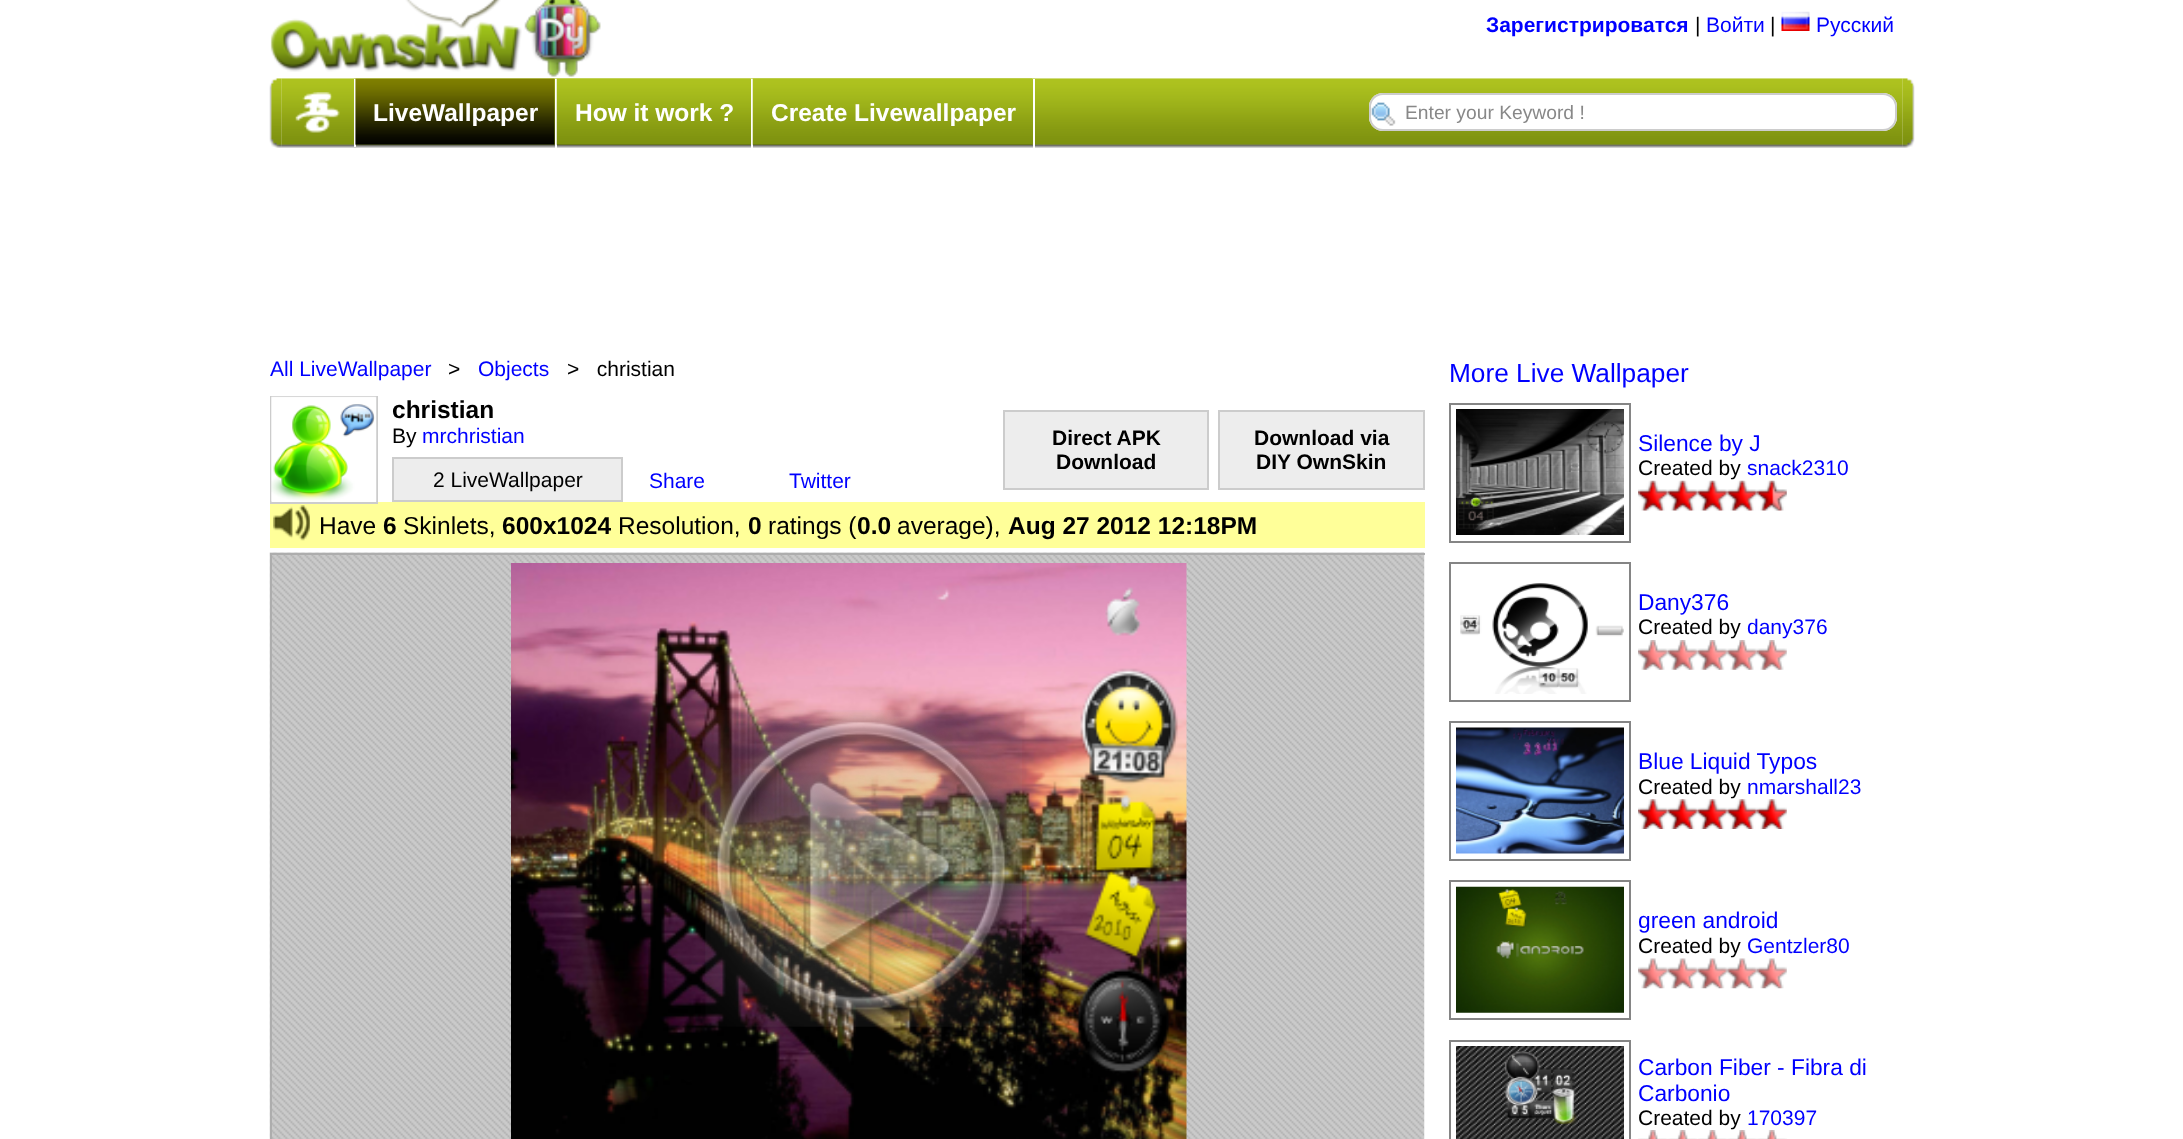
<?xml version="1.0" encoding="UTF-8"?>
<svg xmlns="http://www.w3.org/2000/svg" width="2183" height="1139">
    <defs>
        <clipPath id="clip1"><rect x="270" y="396" width="1155" height="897"/></clipPath>
    </defs>
    <rect width="100%" height="100%" fill="#FFFFFF"/>
    <image x="270" y="0" width="331" height="77" href="img_01.png"/>
    <text x="1486" y="32" font-family="Liberation Sans" font-size="21" font-weight="700" fill="#0000FF">Зарегистрироватся</text>
    <text x="1695" y="32" font-family="Liberation Sans" font-size="21" fill="#000000">|</text>
    <text x="1706" y="32" font-family="Liberation Sans" font-size="21" fill="#0000FF">Войти</text>
    <text x="1770" y="32" font-family="Liberation Sans" font-size="21" fill="#000000">|</text>
    <image x="1781" y="11" width="29" height="20" href="img_02.png"/>
    <text x="1816" y="32" font-family="Liberation Sans" font-size="21" fill="#0000FF">Русский</text>
    <image x="269" y="78" width="13" height="70" href="img_03.png"/>
    <image x="281" y="78" width="1622" height="70" href="img_04.png"/>
    <rect x="354" y="79" width="2" height="68" fill="#FFFFFF"/>
    <image x="295" y="92" width="45" height="41" href="img_05.png"/>
    <rect x="555" y="79" width="2" height="70" fill="#FFFFFF"/>
    <image x="355" y="78" width="200" height="67" href="img_06.png"/>
    <text x="373" y="121" font-family="Liberation Sans" font-size="24.5" font-weight="700" fill="#FFFFFF">LiveWallpaper</text>
    <rect x="751" y="79" width="2" height="70" fill="#FFFFFF"/>
    <image x="556" y="78" width="195" height="67" href="img_07.png"/>
    <text x="575" y="121" font-family="Liberation Sans" font-size="24.5" font-weight="700" fill="#FFFFFF">How it work ?</text>
    <rect x="1033" y="79" width="2" height="70" fill="#FFFFFF"/>
    <image x="752" y="78" width="281" height="67" href="img_08.png"/>
    <text x="771" y="121" font-family="Liberation Sans" font-size="24.5" font-weight="700" fill="#FFFFFF">Create Livewallpaper</text>
    <rect x="1369" y="93" width="528" height="38" rx="14" fill="#FFFFFF"/>
    <image x="1371" y="102" width="25" height="24" href="img_09.png"/>
    <rect x="1370" y="94" width="526" height="36" rx="13" fill="none" stroke="#CCCCCC" stroke-width="2"/>
    <text x="1405" y="119" font-family="Liberation Sans" font-size="19.25" fill="#888888">Enter your Keyword !</text>
    <image x="1902" y="78" width="13" height="70" href="img_10.png"/>
    <text x="270" y="376" font-family="Liberation Sans" font-size="21" fill="#0000FF">All LiveWallpaper</text>
    <text x="448" y="376" font-family="Liberation Sans" font-size="21" fill="#000000">&gt;</text>
    <text x="478" y="376" font-family="Liberation Sans" font-size="21" fill="#0000FF">Objects</text>
    <text x="567" y="376" font-family="Liberation Sans" font-size="21" fill="#000000" xml:space="preserve">&gt;   christian</text>
    <rect x="270" y="502" width="1155" height="46" fill="#FFFF99"/>
    <rect x="271" y="397" width="106" height="106" fill="none" stroke="#CCCCCC" stroke-width="2"/>
    <image x="271" y="396" width="106" height="106" href="img_11.png"/>
    <text x="392" y="418" font-family="Liberation Sans" font-size="24.5" font-weight="700" fill="#000000">christian</text>
    <text x="392" y="443" font-family="Liberation Sans" font-size="21" fill="#000000">By</text>
    <text x="422" y="443" font-family="Liberation Sans" font-size="21" fill="#0000FF">mrchristian</text>
    <rect x="393" y="458" width="229" height="43" fill="#EDEDED" stroke="#CCCCCC" stroke-width="2"/>
    <text x="433" y="487" font-family="Liberation Sans" font-size="21" fill="#000000">2 LiveWallpaper</text>
    <rect x="1004" y="411" width="204" height="78" fill="#EDEDED" stroke="#CCCCCC" stroke-width="2"/>
    <text x="1052" y="445" font-family="Liberation Sans" font-size="21" font-weight="700" fill="#000000">Direct APK</text>
    <text x="1056" y="469" font-family="Liberation Sans" font-size="21" font-weight="700" fill="#000000">Download</text>
    <rect x="1219" y="411" width="205" height="78" fill="#EDEDED" stroke="#CCCCCC" stroke-width="2"/>
    <text x="1254" y="445" font-family="Liberation Sans" font-size="21" font-weight="700" fill="#000000">Download via</text>
    <text x="1256" y="469" font-family="Liberation Sans" font-size="21" font-weight="700" fill="#000000">DIY OwnSkin</text>
    <text x="649" y="488" font-family="Liberation Sans" font-size="21" fill="#0000FF">Share</text>
    <text x="789" y="488" font-family="Liberation Sans" font-size="21" fill="#0000FF">Twitter</text>
    <image x="273" y="505" width="37" height="36" href="img_12.png"/>
    <text x="319" y="534" font-family="Liberation Sans" font-size="24.5" fill="#000000">Have</text>
    <text x="383" y="534" font-family="Liberation Sans" font-size="24.5" font-weight="700" fill="#000000">6</text>
    <text x="403" y="534" font-family="Liberation Sans" font-size="24.5" fill="#000000">Skinlets,</text>
    <text x="502" y="534" font-family="Liberation Sans" font-size="24.5" font-weight="700" fill="#000000">600x1024</text>
    <text x="618" y="534" font-family="Liberation Sans" font-size="24.5" fill="#000000">Resolution,</text>
    <text x="748" y="534" font-family="Liberation Sans" font-size="24.5" font-weight="700" fill="#000000">0</text>
    <text x="768" y="534" font-family="Liberation Sans" font-size="24.5" fill="#000000">ratings (</text>
    <text x="857" y="534" font-family="Liberation Sans" font-size="24.5" font-weight="700" fill="#000000">0.0</text>
    <text x="897" y="534" font-family="Liberation Sans" font-size="24.5" fill="#000000">average),</text>
    <text x="1008" y="534" font-family="Liberation Sans" font-size="24.5" font-weight="700" fill="#000000">Aug 27 2012 12:18PM</text>
    <image x="269" y="552" width="1156" height="587" href="img_13.png"/>
    <g clip-path="url(#clip1)">
        <rect x="271" y="554" width="1156" height="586" fill="none" stroke="#ADADAD" stroke-width="2"/>
    </g>
    <image x="511" y="563" width="676" height="576" href="img_14.png"/>
    <image x="705" y="710" width="317" height="317" href="img_15.png"/>
    <text x="1449" y="382" font-family="Liberation Sans" font-size="26.25" fill="#0000FF">More Live Wallpaper</text>
    <rect x="1450" y="404" width="180" height="138" fill="none" stroke="#858585" stroke-width="2"/>
    <image x="1456" y="409" width="168" height="126" href="img_16.png"/>
    <text x="1638" y="451" font-family="Liberation Sans" font-size="22.75" fill="#0000FF">Silence by J</text>
    <text x="1638" y="475" font-family="Liberation Sans" font-size="21" fill="#000000">Created by</text>
    <text x="1747" y="475" font-family="Liberation Sans" font-size="21" fill="#0000FF">snack2310</text>
    <image x="1638" y="480" width="30" height="31" href="img_17.png"/>
    <image x="1667" y="480" width="31" height="31" href="img_18.png"/>
    <image x="1697" y="480" width="31" height="31" href="img_19.png"/>
    <image x="1727" y="480" width="30" height="31" href="img_20.png"/>
    <image x="1757" y="480" width="30" height="31" href="img_21.png"/>
    <rect x="1450" y="563" width="180" height="138" fill="none" stroke="#858585" stroke-width="2"/>
    <image x="1460" y="583" width="164" height="111" href="img_22.png"/>
    <text x="1638" y="610" font-family="Liberation Sans" font-size="22.75" fill="#0000FF">Dany376</text>
    <text x="1638" y="634" font-family="Liberation Sans" font-size="21" fill="#000000">Created by</text>
    <text x="1747" y="634" font-family="Liberation Sans" font-size="21" fill="#0000FF">dany376</text>
    <image x="1638" y="640" width="30" height="30" href="img_23.png"/>
    <image x="1667" y="640" width="31" height="30" href="img_24.png"/>
    <image x="1697" y="640" width="31" height="30" href="img_25.png"/>
    <image x="1727" y="640" width="30" height="30" href="img_26.png"/>
    <image x="1757" y="640" width="30" height="30" href="img_27.png"/>
    <rect x="1450" y="722" width="180" height="138" fill="none" stroke="#858585" stroke-width="2"/>
    <image x="1456" y="727" width="168" height="127" href="img_28.png"/>
    <text x="1638" y="769" font-family="Liberation Sans" font-size="22.75" fill="#0000FF">Blue Liquid Typos</text>
    <text x="1638" y="794" font-family="Liberation Sans" font-size="21" fill="#000000">Created by</text>
    <text x="1747" y="794" font-family="Liberation Sans" font-size="21" fill="#0000FF">nmarshall23</text>
    <image x="1638" y="799" width="30" height="30" href="img_29.png"/>
    <image x="1667" y="799" width="31" height="30" href="img_30.png"/>
    <image x="1697" y="799" width="31" height="30" href="img_31.png"/>
    <image x="1727" y="799" width="30" height="30" href="img_32.png"/>
    <image x="1757" y="799" width="30" height="30" href="img_33.png"/>
    <rect x="1450" y="881" width="180" height="138" fill="none" stroke="#858585" stroke-width="2"/>
    <image x="1456" y="886" width="168" height="127" href="img_34.png"/>
    <text x="1638" y="928" font-family="Liberation Sans" font-size="22.75" fill="#0000FF">green android</text>
    <text x="1638" y="953" font-family="Liberation Sans" font-size="21" fill="#000000">Created by</text>
    <text x="1747" y="953" font-family="Liberation Sans" font-size="21" fill="#0000FF">Gentzler80</text>
    <image x="1638" y="958" width="30" height="31" href="img_35.png"/>
    <image x="1667" y="958" width="31" height="31" href="img_36.png"/>
    <image x="1697" y="958" width="31" height="31" href="img_37.png"/>
    <image x="1727" y="958" width="30" height="31" href="img_38.png"/>
    <image x="1757" y="958" width="30" height="31" href="img_39.png"/>
    <rect x="1450" y="1041" width="180" height="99" fill="none" stroke="#858585" stroke-width="2"/>
    <image x="1456" y="1046" width="168" height="93" href="img_40.png"/>
    <text font-family="Liberation Sans" font-size="22.75" fill="#0000FF">
        <tspan x="1638" y="1075">Carbon Fiber - Fibra di</tspan>
        <tspan x="1638" y="1101">Carbonio</tspan>
    </text>
    <text x="1638" y="1125" font-family="Liberation Sans" font-size="21" fill="#000000">Created by</text>
    <text x="1747" y="1125" font-family="Liberation Sans" font-size="21" fill="#0000FF">170397</text>
    <image x="1638" y="1130" width="30" height="9" href="img_41.png"/>
    <image x="1668" y="1130" width="30" height="9" href="img_42.png"/>
    <image x="1698" y="1130" width="29" height="9" href="img_43.png"/>
    <image x="1727" y="1130" width="30" height="9" href="img_44.png"/>
    <image x="1757" y="1130" width="30" height="9" href="img_41.png"/>
</svg>
